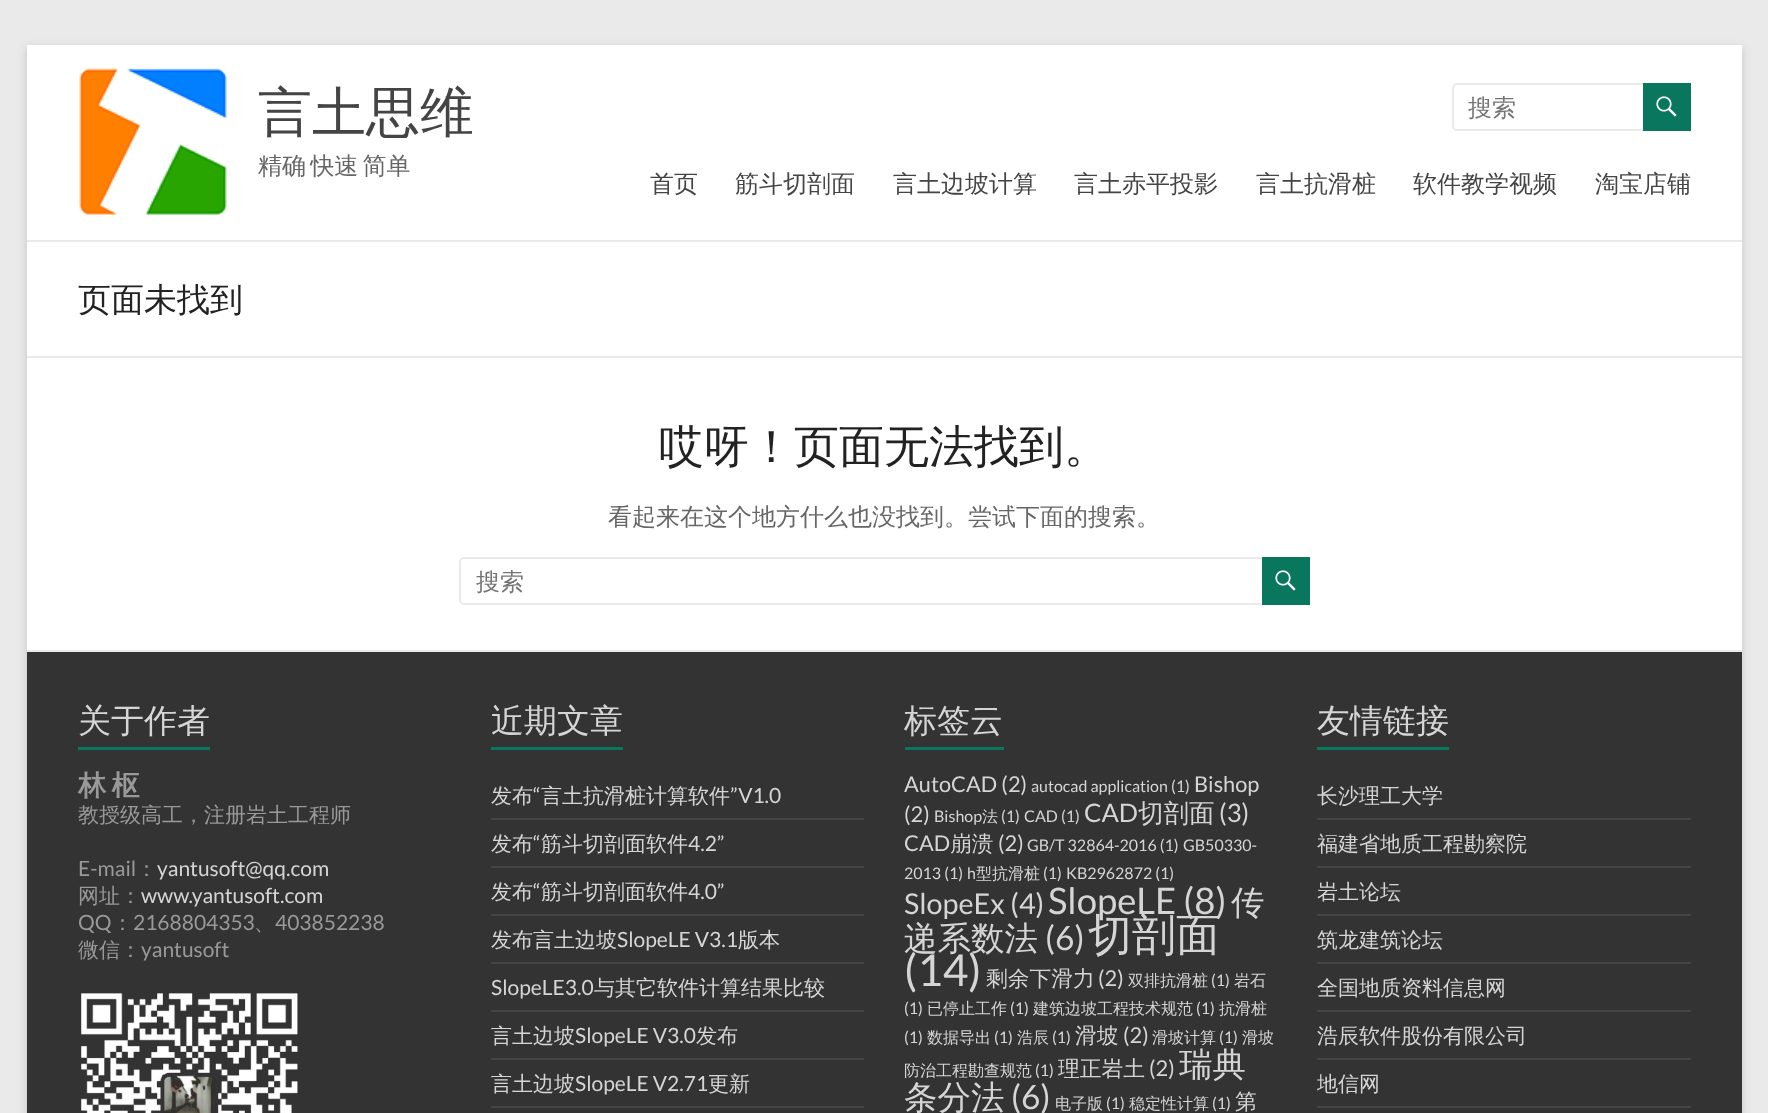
<?xml version="1.0" encoding="UTF-8"?>
<svg xmlns="http://www.w3.org/2000/svg" width="1768" height="1113">
    <defs>
        <filter id="blur1" x="-50%" y="-200%" width="200%" height="500%"><feGaussianBlur stdDeviation="4.5"/></filter>
    </defs>
    <rect width="100%" height="100%" fill="#EAEAEA"/>
    <rect x="27" y="48" width="1715" height="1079" fill="#646464" fill-opacity="0.3" filter="url(#blur1)"/>
    <rect x="27" y="45" width="1715" height="605" fill="#FFFFFF"/>
    <rect x="27" y="240" width="1715" height="2" fill="#EAEAEA"/>
    <image x="79" y="68" width="148" height="147" href="img_01.png"/>
    <text x="258" y="131" font-family="WenQuanYi Zen Hei" font-size="54" font-weight="500" fill="#444444">言土思维</text>
    <text x="258" y="174" word-spacing="-3" font-family="WenQuanYi Zen Hei" font-size="24" font-weight="500" fill="#666666">精确 快速 简单</text>
    <rect x="1453" y="84" width="193" height="46" rx="4" fill="none" stroke="#EAEAEA" stroke-width="2"/>
    <text x="1468" y="116" font-family="WenQuanYi Zen Hei" font-size="24" font-weight="500" fill="#757575">搜索</text>
    <rect x="1643" y="83" width="48" height="48" fill="#09775E"/>
    <image x="1656" y="96" width="21" height="21" href="img_02.png"/>
    <text x="650" y="192" font-family="WenQuanYi Zen Hei" font-size="24" font-weight="500" fill="#444444">首页</text>
    <text x="735" y="192" font-family="WenQuanYi Zen Hei" font-size="24" font-weight="500" fill="#444444">筋斗切剖面</text>
    <text x="893" y="192" font-family="WenQuanYi Zen Hei" font-size="24" font-weight="500" fill="#444444">言土边坡计算</text>
    <text x="1074" y="192" font-family="WenQuanYi Zen Hei" font-size="24" font-weight="500" fill="#444444">言土赤平投影</text>
    <text x="1256" y="192" font-family="WenQuanYi Zen Hei" font-size="24" font-weight="500" fill="#444444">言土抗滑桩</text>
    <text x="1413" y="192" font-family="WenQuanYi Zen Hei" font-size="24" font-weight="500" fill="#444444">软件教学视频</text>
    <text x="1595" y="192" font-family="WenQuanYi Zen Hei" font-size="24" font-weight="500" fill="#444444">淘宝店铺</text>
    <rect x="27" y="356" width="1715" height="2" fill="#EAEAEA"/>
    <text x="78" y="311" font-family="WenQuanYi Zen Hei" font-size="33" font-weight="500" fill="#222222">页面未找到</text>
    <text x="659" y="462" font-family="WenQuanYi Zen Hei" font-size="45" font-weight="500" fill="#222222">哎呀！页面无法找到。</text>
    <text x="608" y="525" font-family="WenQuanYi Zen Hei" font-size="24" font-weight="500" fill="#666666">看起来在这个地方什么也没找到。尝试下面的搜索。</text>
    <rect x="460" y="558" width="805" height="46" rx="4" fill="none" stroke="#EAEAEA" stroke-width="2"/>
    <text x="476" y="590" font-family="WenQuanYi Zen Hei" font-size="24" font-weight="500" fill="#757575">搜索</text>
    <rect x="1262" y="557" width="48" height="48" fill="#09775E"/>
    <image x="1275" y="570" width="21" height="21" href="img_02.png"/>
    <rect x="27" y="652" width="1715" height="461" fill="#333333"/>
    <rect x="27" y="650" width="1715" height="2" fill="#EAEAEA"/>
    <text x="78" y="732" font-family="WenQuanYi Zen Hei" font-size="33" font-weight="500" fill="#D5D5D5">关于作者</text>
    <rect x="78" y="747" width="132" height="3" fill="#09775E"/>
    <text x="78" y="795" word-spacing="-3" font-family="WenQuanYi Zen Hei" font-size="28" font-weight="700" fill="#999999">林 枢</text>
    <text x="78" y="822" font-family="WenQuanYi Zen Hei" font-size="21" font-weight="500" fill="#999999">教授级高工，注册岩土工程师</text>
    <text x="78" y="876" font-family="Lato" font-size="21" fill="#999999">E-mail</text>
    <text x="136" y="876" font-family="WenQuanYi Zen Hei" font-size="21" font-weight="500" fill="#999999">：</text>
    <text x="157" y="876" font-family="Lato" font-size="21" fill="#D5D5D5">yantusoft@qq.com</text>
    <text x="78" y="903" font-family="WenQuanYi Zen Hei" font-size="21" font-weight="500" fill="#999999">网址：</text>
    <text x="141" y="903" font-family="Lato" font-size="21" fill="#D5D5D5">www.yantusoft.com</text>
    <text x="78" y="930" font-family="Lato" font-size="21" fill="#999999">QQ</text>
    <text x="112" y="930" font-family="WenQuanYi Zen Hei" font-size="21" font-weight="500" fill="#999999">：</text>
    <text x="133" y="930" font-family="Lato" font-size="21" fill="#999999">2168804353</text>
    <text x="275" y="930" font-family="Lato" font-size="21" fill="#999999">403852238</text>
    <text x="254" y="930" font-family="WenQuanYi Zen Hei" font-size="21" font-weight="500" fill="#999999">、</text>
    <text x="78" y="957" font-family="WenQuanYi Zen Hei" font-size="21" font-weight="500" fill="#999999">微信：</text>
    <text x="141" y="957" font-family="Lato" font-size="21" fill="#999999">yantusoft</text>
    <image x="81" y="993" width="217" height="120" href="img_03.png"/>
    <text x="491" y="732" font-family="WenQuanYi Zen Hei" font-size="33" font-weight="500" fill="#D5D5D5">近期文章</text>
    <rect x="491" y="747" width="132" height="3" fill="#09775E"/>
    <rect x="491" y="818" width="373" height="2" fill="#444444"/>
    <text x="491" y="803" font-family="WenQuanYi Zen Hei" font-size="21" font-weight="500" fill="#D5D5D5">发布</text>
    <text x="533" y="803" font-family="Lato" font-size="21" fill="#D5D5D5">“</text>
    <text x="541" y="803" font-family="WenQuanYi Zen Hei" font-size="21" font-weight="500" fill="#D5D5D5">言土抗滑桩计算软件</text>
    <text x="730" y="803" font-family="Lato" font-size="21" fill="#D5D5D5">”V1.0</text>
    <rect x="491" y="866" width="373" height="2" fill="#444444"/>
    <text x="491" y="851" font-family="WenQuanYi Zen Hei" font-size="21" font-weight="500" fill="#D5D5D5">发布</text>
    <text x="533" y="851" font-family="Lato" font-size="21" fill="#D5D5D5">“</text>
    <text x="541" y="851" font-family="WenQuanYi Zen Hei" font-size="21" font-weight="500" fill="#D5D5D5">筋斗切剖面软件</text>
    <text x="688" y="851" font-family="Lato" font-size="21" fill="#D5D5D5">4.2”</text>
    <rect x="491" y="914" width="373" height="2" fill="#444444"/>
    <text x="491" y="899" font-family="WenQuanYi Zen Hei" font-size="21" font-weight="500" fill="#D5D5D5">发布</text>
    <text x="533" y="899" font-family="Lato" font-size="21" fill="#D5D5D5">“</text>
    <text x="541" y="899" font-family="WenQuanYi Zen Hei" font-size="21" font-weight="500" fill="#D5D5D5">筋斗切剖面软件</text>
    <text x="688" y="899" font-family="Lato" font-size="21" fill="#D5D5D5">4.0”</text>
    <rect x="491" y="962" width="373" height="2" fill="#444444"/>
    <text x="491" y="947" font-family="WenQuanYi Zen Hei" font-size="21" font-weight="500" fill="#D5D5D5">发布言土边坡</text>
    <text x="617" y="947" font-family="Lato" font-size="21" fill="#D5D5D5">SlopeLE V3.1</text>
    <text x="738" y="947" font-family="WenQuanYi Zen Hei" font-size="21" font-weight="500" fill="#D5D5D5">版本</text>
    <rect x="491" y="1010" width="373" height="2" fill="#444444"/>
    <text x="491" y="995" font-family="Lato" font-size="21" fill="#D5D5D5">SlopeLE3.0</text>
    <text x="594" y="995" font-family="WenQuanYi Zen Hei" font-size="21" font-weight="500" fill="#D5D5D5">与其它软件计算结果比较</text>
    <rect x="491" y="1058" width="373" height="2" fill="#444444"/>
    <text x="491" y="1043" font-family="WenQuanYi Zen Hei" font-size="21" font-weight="500" fill="#D5D5D5">言土边坡</text>
    <text x="575" y="1043" font-family="Lato" font-size="21" fill="#D5D5D5">SlopeLE V3.0</text>
    <text x="696" y="1043" font-family="WenQuanYi Zen Hei" font-size="21" font-weight="500" fill="#D5D5D5">发布</text>
    <rect x="491" y="1106" width="373" height="2" fill="#444444"/>
    <text x="491" y="1091" font-family="WenQuanYi Zen Hei" font-size="21" font-weight="500" fill="#D5D5D5">言土边坡</text>
    <text x="575" y="1091" font-family="Lato" font-size="21" fill="#D5D5D5">SlopeLE V2.71</text>
    <text x="708" y="1091" font-family="WenQuanYi Zen Hei" font-size="21" font-weight="500" fill="#D5D5D5">更新</text>
    <text x="904" y="732" font-family="WenQuanYi Zen Hei" font-size="33" font-weight="500" fill="#D5D5D5">标签云</text>
    <rect x="905" y="747" width="99" height="3" fill="#09775E"/>
    <text x="904" y="792" font-family="Lato" font-size="21.75" fill="#D5D5D5">AutoCAD (2)</text>
    <text x="1031" y="792" font-family="Lato" font-size="16" fill="#D5D5D5">autocad application (1)</text>
    <text x="1194" y="792" font-family="Lato" font-size="21.75" fill="#D5D5D5">Bishop</text>
    <text x="904" y="822" font-family="Lato" font-size="21.75" fill="#D5D5D5">(2)</text>
    <text x="934" y="822" font-family="Lato" font-size="16" fill="#D5D5D5">Bishop</text>
    <text x="982" y="822" font-family="WenQuanYi Zen Hei" font-size="16" font-weight="500" fill="#D5D5D5">法</text>
    <text x="1001" y="822" font-family="Lato" font-size="16" fill="#D5D5D5">(1)</text>
    <text x="1024" y="822" font-family="Lato" font-size="16" fill="#D5D5D5">CAD (1)</text>
    <text x="1084" y="822" font-family="Lato" font-size="25.5" fill="#D5D5D5">CAD</text>
    <text x="1138" y="822" font-family="WenQuanYi Zen Hei" font-size="25.5" font-weight="500" fill="#D5D5D5">切剖面</text>
    <text x="1219" y="822" font-family="Lato" font-size="25.5" fill="#D5D5D5">(3)</text>
    <text x="904" y="851" font-family="Lato" font-size="21.75" fill="#D5D5D5">CAD</text>
    <text x="950" y="851" font-family="WenQuanYi Zen Hei" font-size="21.75" font-weight="500" fill="#D5D5D5">崩溃</text>
    <text x="998" y="851" font-family="Lato" font-size="21.75" fill="#D5D5D5">(2)</text>
    <text x="1027" y="851" font-family="Lato" font-size="16" fill="#D5D5D5">GB/T 32864-2016 (1)</text>
    <text x="1183" y="851" font-family="Lato" font-size="16" fill="#D5D5D5">GB50330-</text>
    <text x="904" y="879" font-family="Lato" font-size="16" fill="#D5D5D5">2013 (1)</text>
    <text x="967" y="879" font-family="Lato" font-size="16" fill="#D5D5D5">h</text>
    <text x="976" y="879" font-family="WenQuanYi Zen Hei" font-size="16" font-weight="500" fill="#D5D5D5">型抗滑桩</text>
    <text x="1043" y="879" font-family="Lato" font-size="16" fill="#D5D5D5">(1)</text>
    <text x="1066" y="879" font-family="Lato" font-size="16" fill="#D5D5D5">KB2962872 (1)</text>
    <text x="904" y="914" font-family="Lato" font-size="28.75" fill="#D5D5D5">SlopeEx (4)</text>
    <text x="1048" y="914" font-family="Lato" font-size="36.5" fill="#D5D5D5">SlopeLE (8)</text>
    <text x="1231" y="914" font-family="WenQuanYi Zen Hei" font-size="33.5" font-weight="500" fill="#D5D5D5">传</text>
    <text x="904" y="950" font-family="WenQuanYi Zen Hei" font-size="33.5" font-weight="500" fill="#D5D5D5">递系数法</text>
    <text x="1045" y="950" font-family="Lato" font-size="33.5" fill="#D5D5D5">(6)</text>
    <text x="1088" y="950" font-family="WenQuanYi Zen Hei" font-size="44" font-weight="500" fill="#D5D5D5">切剖面</text>
    <text x="904" y="986" font-family="Lato" font-size="44" fill="#D5D5D5">(14)</text>
    <text x="986" y="986" font-family="WenQuanYi Zen Hei" font-size="21.75" font-weight="500" fill="#D5D5D5">剩余下滑力</text>
    <text x="1098" y="986" font-family="Lato" font-size="21.75" fill="#D5D5D5">(2)</text>
    <text x="1128" y="986" font-family="WenQuanYi Zen Hei" font-size="16" font-weight="500" fill="#D5D5D5">双排抗滑桩</text>
    <text x="1211" y="986" font-family="Lato" font-size="16" fill="#D5D5D5">(1)</text>
    <text x="1234" y="986" font-family="WenQuanYi Zen Hei" font-size="16" font-weight="500" fill="#D5D5D5">岩石</text>
    <text x="904" y="1014" font-family="Lato" font-size="16" fill="#D5D5D5">(1)</text>
    <text x="927" y="1014" font-family="WenQuanYi Zen Hei" font-size="16" font-weight="500" fill="#D5D5D5">已停止工作</text>
    <text x="1010" y="1014" font-family="Lato" font-size="16" fill="#D5D5D5">(1)</text>
    <text x="1033" y="1014" font-family="WenQuanYi Zen Hei" font-size="16" font-weight="500" fill="#D5D5D5">建筑边坡工程技术规范</text>
    <text x="1196" y="1014" font-family="Lato" font-size="16" fill="#D5D5D5">(1)</text>
    <text x="1219" y="1014" font-family="WenQuanYi Zen Hei" font-size="16" font-weight="500" fill="#D5D5D5">抗滑桩</text>
    <text x="904" y="1043" font-family="Lato" font-size="16" fill="#D5D5D5">(1)</text>
    <text x="927" y="1043" font-family="WenQuanYi Zen Hei" font-size="16" font-weight="500" fill="#D5D5D5">数据导出</text>
    <text x="994" y="1043" font-family="Lato" font-size="16" fill="#D5D5D5">(1)</text>
    <text x="1017" y="1043" font-family="WenQuanYi Zen Hei" font-size="16" font-weight="500" fill="#D5D5D5">浩辰</text>
    <text x="1052" y="1043" font-family="Lato" font-size="16" fill="#D5D5D5">(1)</text>
    <text x="1075" y="1043" font-family="WenQuanYi Zen Hei" font-size="21.75" font-weight="500" fill="#D5D5D5">滑坡</text>
    <text x="1123" y="1043" font-family="Lato" font-size="21.75" fill="#D5D5D5">(2)</text>
    <text x="1152" y="1043" font-family="WenQuanYi Zen Hei" font-size="16" font-weight="500" fill="#D5D5D5">滑坡计算</text>
    <text x="1219" y="1043" font-family="Lato" font-size="16" fill="#D5D5D5">(1)</text>
    <text x="1242" y="1043" font-family="WenQuanYi Zen Hei" font-size="16" font-weight="500" fill="#D5D5D5">滑坡</text>
    <text x="904" y="1076" font-family="WenQuanYi Zen Hei" font-size="16" font-weight="500" fill="#D5D5D5">防治工程勘查规范</text>
    <text x="1035" y="1076" font-family="Lato" font-size="16" fill="#D5D5D5">(1)</text>
    <text x="1058" y="1076" font-family="WenQuanYi Zen Hei" font-size="21.75" font-weight="500" fill="#D5D5D5">理正岩土</text>
    <text x="1149" y="1076" font-family="Lato" font-size="21.75" fill="#D5D5D5">(2)</text>
    <text x="1179" y="1076" font-family="WenQuanYi Zen Hei" font-size="33.5" font-weight="500" fill="#D5D5D5">瑞典</text>
    <text x="904" y="1109" font-family="WenQuanYi Zen Hei" font-size="33.5" font-weight="500" fill="#D5D5D5">条分法</text>
    <text x="1011" y="1109" font-family="Lato" font-size="33.5" fill="#D5D5D5">(6)</text>
    <text x="1055" y="1109" font-family="WenQuanYi Zen Hei" font-size="16" font-weight="500" fill="#D5D5D5">电子版</text>
    <text x="1106" y="1109" font-family="Lato" font-size="16" fill="#D5D5D5">(1)</text>
    <text x="1129" y="1109" font-family="WenQuanYi Zen Hei" font-size="16" font-weight="500" fill="#D5D5D5">稳定性计算</text>
    <text x="1212" y="1109" font-family="Lato" font-size="16" fill="#D5D5D5">(1)</text>
    <text x="1235" y="1109" font-family="WenQuanYi Zen Hei" font-size="21.75" font-weight="500" fill="#D5D5D5">第</text>
    <text x="1317" y="732" font-family="WenQuanYi Zen Hei" font-size="33" font-weight="500" fill="#D5D5D5">友情链接</text>
    <rect x="1317" y="747" width="132" height="3" fill="#09775E"/>
    <rect x="1317" y="818" width="374" height="2" fill="#444444"/>
    <text x="1317" y="803" font-family="WenQuanYi Zen Hei" font-size="21" font-weight="500" fill="#D5D5D5">长沙理工大学</text>
    <rect x="1317" y="866" width="374" height="2" fill="#444444"/>
    <text x="1317" y="851" font-family="WenQuanYi Zen Hei" font-size="21" font-weight="500" fill="#D5D5D5">福建省地质工程勘察院</text>
    <rect x="1317" y="914" width="374" height="2" fill="#444444"/>
    <text x="1317" y="899" font-family="WenQuanYi Zen Hei" font-size="21" font-weight="500" fill="#D5D5D5">岩土论坛</text>
    <rect x="1317" y="962" width="374" height="2" fill="#444444"/>
    <text x="1317" y="947" font-family="WenQuanYi Zen Hei" font-size="21" font-weight="500" fill="#D5D5D5">筑龙建筑论坛</text>
    <rect x="1317" y="1010" width="374" height="2" fill="#444444"/>
    <text x="1317" y="995" font-family="WenQuanYi Zen Hei" font-size="21" font-weight="500" fill="#D5D5D5">全国地质资料信息网</text>
    <rect x="1317" y="1058" width="374" height="2" fill="#444444"/>
    <text x="1317" y="1043" font-family="WenQuanYi Zen Hei" font-size="21" font-weight="500" fill="#D5D5D5">浩辰软件股份有限公司</text>
    <rect x="1317" y="1106" width="374" height="2" fill="#444444"/>
    <text x="1317" y="1091" font-family="WenQuanYi Zen Hei" font-size="21" font-weight="500" fill="#D5D5D5">地信网</text>
</svg>
